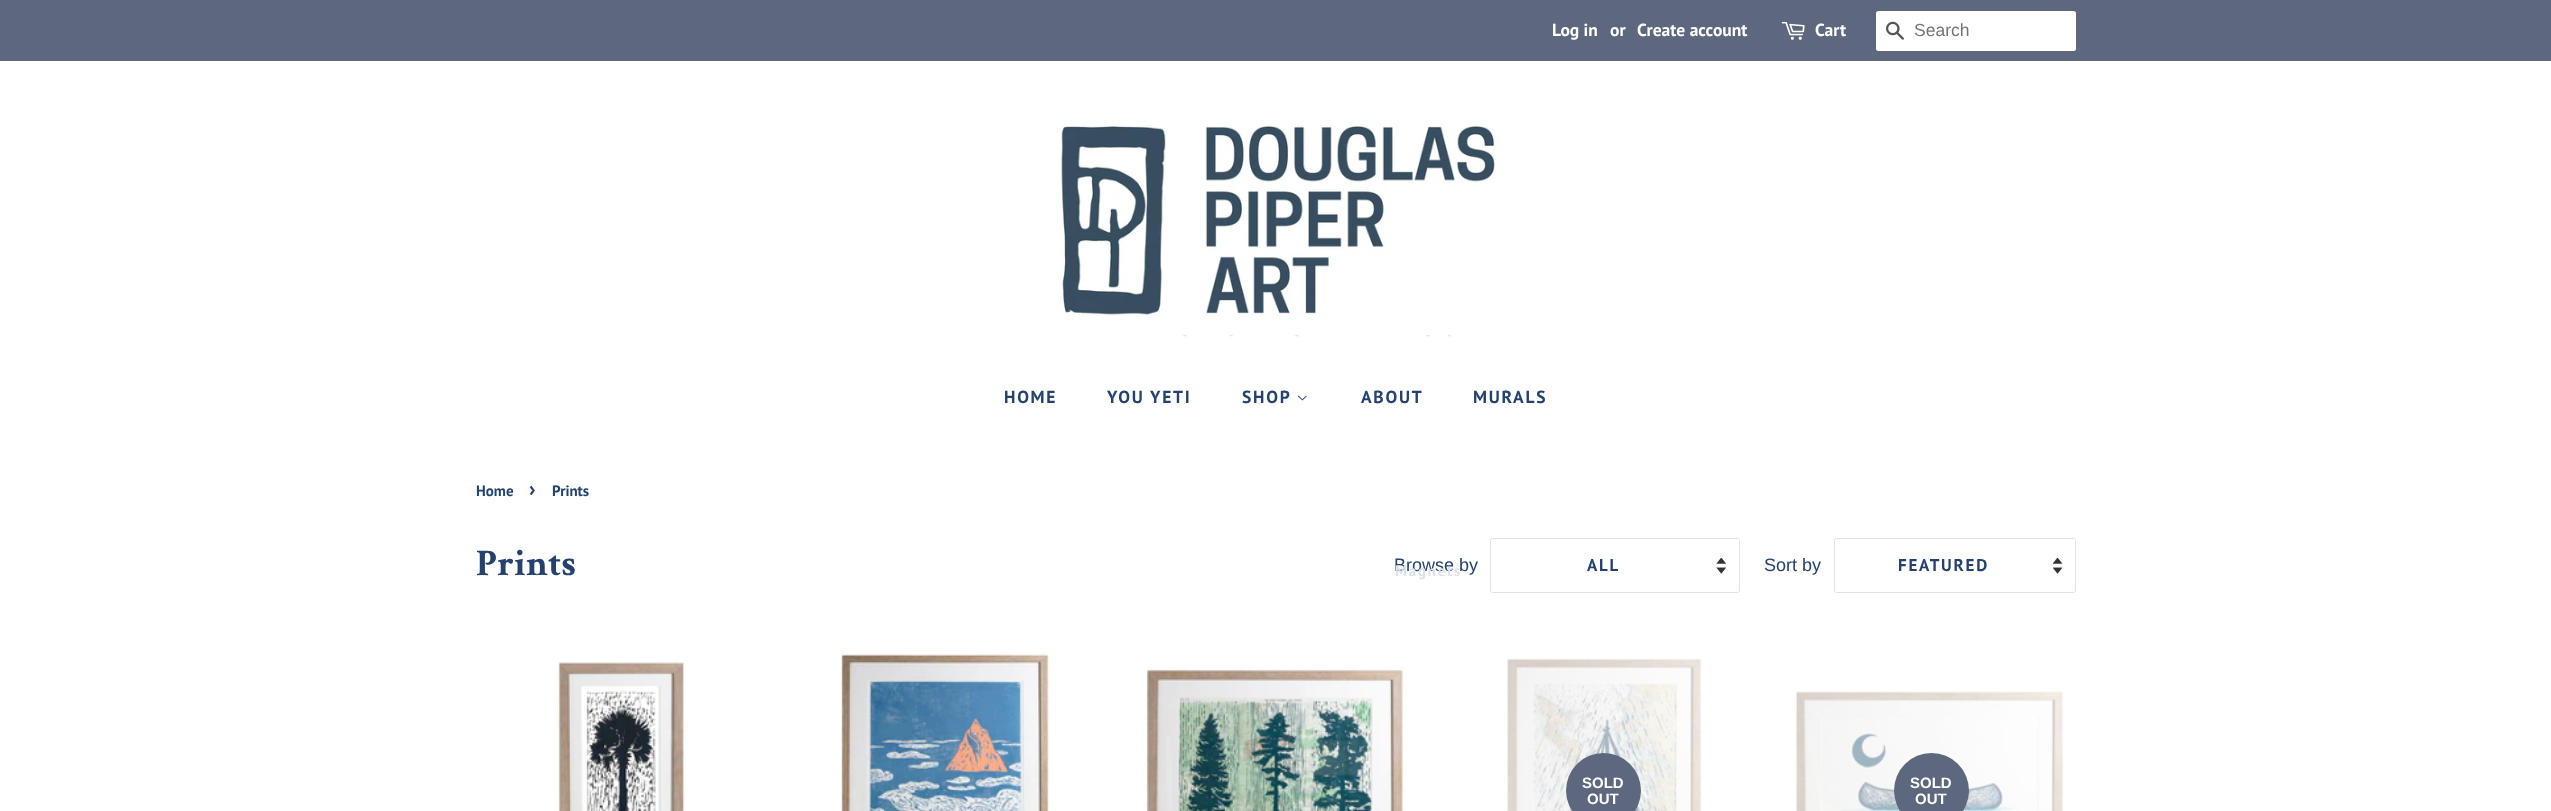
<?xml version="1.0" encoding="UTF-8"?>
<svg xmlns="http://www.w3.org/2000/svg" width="2551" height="811">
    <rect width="100%" height="100%" fill="#FFFFFF"/>
    <rect x="0" y="0" width="2551" height="61" fill="#5D687E"/>
    <text x="1552" y="36" font-family="PT Sans" font-size="17.5" font-weight="700" fill="#FFFFFF">Log in</text>
    <text x="1610" y="36" font-family="PT Sans" font-size="17.5" font-weight="700" fill="#FFFFFF">or</text>
    <text x="1637" y="36" font-family="PT Sans" font-size="17.5" font-weight="700" fill="#FFFFFF">Create account</text>
    <image x="1781" y="21" width="24" height="19" href="img_01.png"/>
    <text x="1815" y="36" font-family="PT Sans" font-size="17.5" font-weight="700" fill="#FFFFFF">Cart</text>
    <rect x="1876" y="11" width="200" height="40" rx="2.5" fill="#FFFFFF"/>
    <image x="1886" y="21" width="18" height="19" href="img_02.png"/>
    <text x="1914" y="36" font-family="Liberation Sans" font-size="17.5" fill="#757575">Search</text>
    <image x="1061" y="124" width="434" height="213" href="img_03.png"/>
    <text x="1004" y="403" font-family="PT Sans" font-size="17.5" font-weight="700" letter-spacing="1.75" fill="#24426D">HOME</text>
    <text x="1107" y="403" font-family="PT Sans" font-size="17.5" font-weight="700" letter-spacing="1.75" fill="#24426D">YOU YETI</text>
    <text x="1242" y="403" font-family="PT Sans" font-size="17.5" font-weight="700" letter-spacing="1.75" fill="#24426D">SHOP</text>
    <image x="1298" y="395" width="9" height="6" href="img_04.png"/>
    <text x="1394" y="571" font-family="Liberation Sans" font-size="18" fill="#24426D">Browse by</text>
    <text x="1395" y="576" font-family="PT Sans" font-size="15" font-weight="700" letter-spacing="1.75" fill="#DDE2E8">Magnets</text>
    <text x="1361" y="403" font-family="PT Sans" font-size="17.5" font-weight="700" letter-spacing="1.75" fill="#24426D">ABOUT</text>
    <text x="1473" y="403" font-family="PT Sans" font-size="17.5" font-weight="700" letter-spacing="1.75" fill="#24426D">MURALS</text>
    <text x="476" y="496" font-family="PT Sans" font-size="15" font-weight="700" fill="#24426D">Home</text>
    <text x="529" y="496" font-family="PT Sans" font-size="21" font-weight="700" fill="#24426D">›</text>
    <text x="552" y="496" font-family="PT Sans" font-size="15" font-weight="700" fill="#24426D">Prints</text>
    <text x="476" y="575" font-family="Crimson Text" font-size="37.5" font-weight="700" fill="#24426D">Prints</text>
    <image x="1716" y="558" width="10" height="16" href="img_05.png"/>
    <rect x="1490.5" y="538.5" width="249" height="54" rx="2" fill="none" stroke="#DEE3E9"/>
    <text x="1587" y="571" font-family="PT Sans" font-size="17" font-weight="700" letter-spacing="1.75" fill="#24426D">ALL</text>
    <text x="1764" y="571" font-family="Liberation Sans" font-size="18" fill="#24426D">Sort by</text>
    <image x="2053" y="558" width="10" height="16" href="img_06.png"/>
    <rect x="1834.5" y="538.5" width="241" height="54" rx="2" fill="none" stroke="#DEE3E9"/>
    <text x="1898" y="571" font-family="PT Sans" font-size="17" font-weight="700" letter-spacing="1.75" fill="#24426D">FEATURED</text>
    <image x="557" y="661" width="130" height="150" href="img_07.png"/>
    <image x="840" y="651" width="210" height="160" href="img_08.png"/>
    <image x="1146" y="667" width="258" height="144" href="img_09.png"/>
    <image x="1507" y="658" width="195" height="153" href="img_10.png"/>
    <circle cx="1603.5" cy="790.5" r="37.5" fill="#5D687E"/>
    <text x="1582" y="788" font-family="Liberation Sans" font-size="15" font-weight="700" fill="#FFFFFF">SOLD</text>
    <text x="1587" y="804" font-family="Liberation Sans" font-size="15" font-weight="700" fill="#FFFFFF">OUT</text>
    <image x="1795" y="691" width="269" height="120" href="img_11.png"/>
    <circle cx="1931.5" cy="790.5" r="37.5" fill="#5D687E"/>
    <text x="1910" y="788" font-family="Liberation Sans" font-size="15" font-weight="700" fill="#FFFFFF">SOLD</text>
    <text x="1915" y="804" font-family="Liberation Sans" font-size="15" font-weight="700" fill="#FFFFFF">OUT</text>
</svg>
